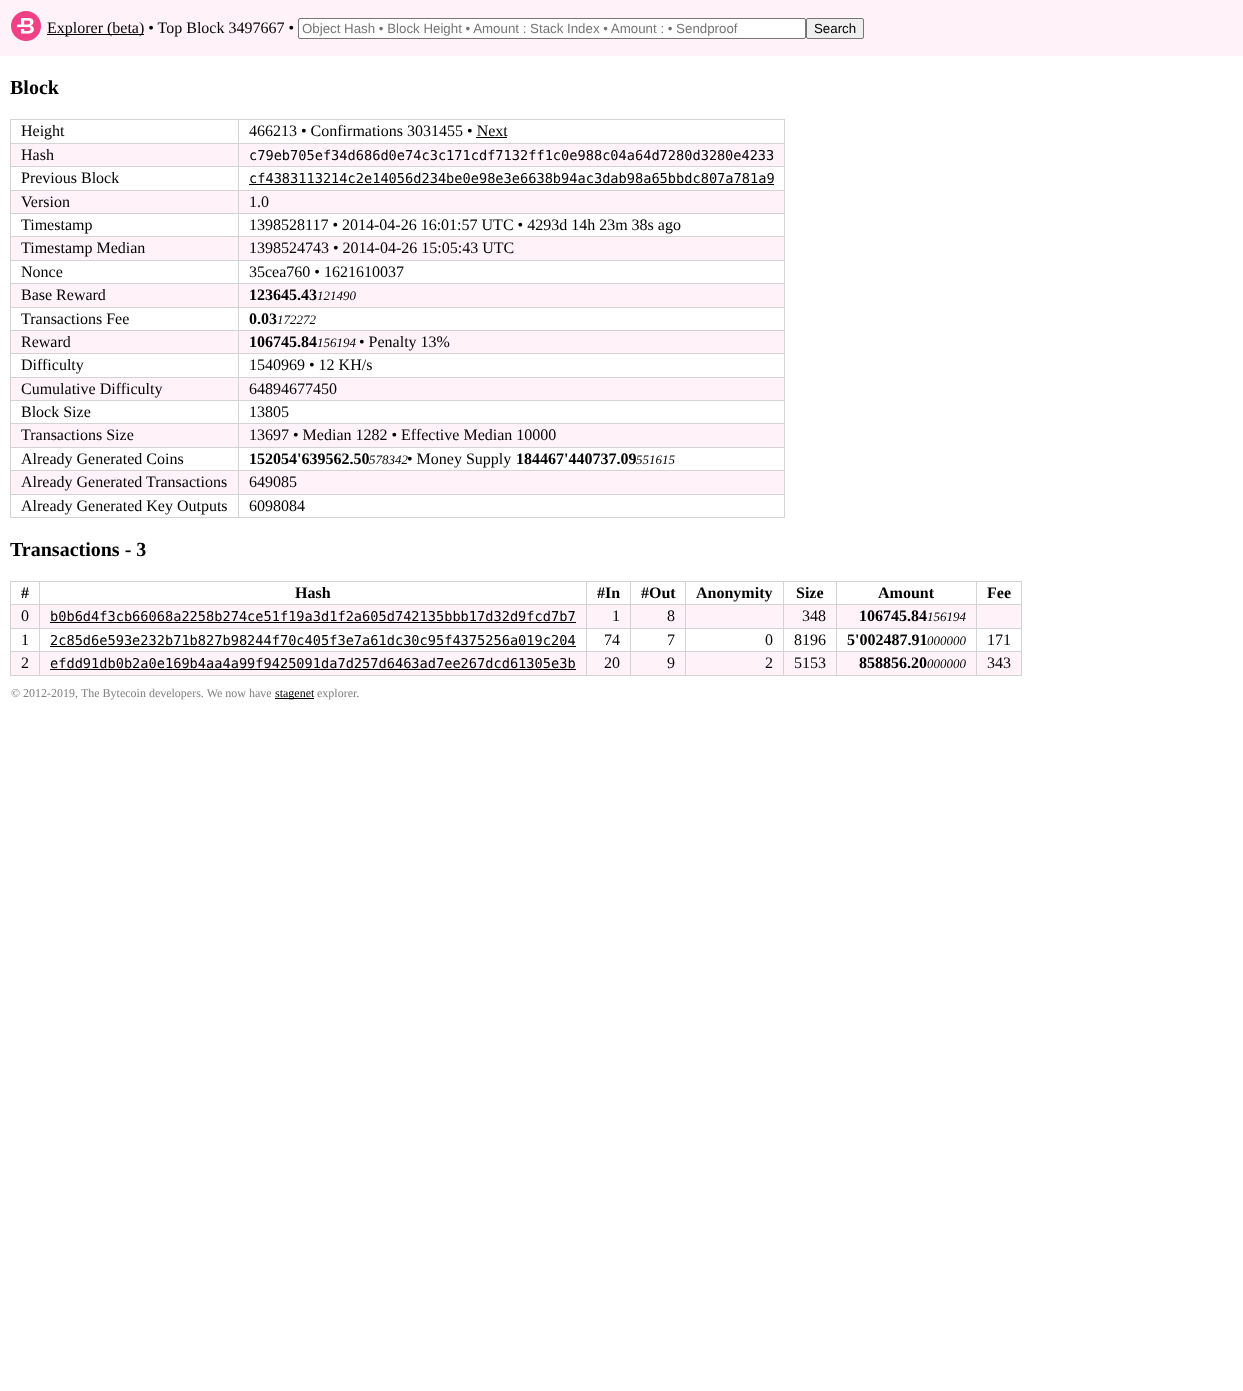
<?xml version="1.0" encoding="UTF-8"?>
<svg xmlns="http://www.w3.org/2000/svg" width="1243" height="1391">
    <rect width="100%" height="100%" fill="#FFFFFF"/>
    <rect x="0" y="0" width="1243" height="56" fill="#FFF3F9"/>
    <image x="11" y="11" width="30" height="30" href="img_01.png"/>
    <rect x="47" y="34" width="97" height="1" fill="#000000"/>
    <text x="47" y="33" font-family="Liberation Serif" font-size="16" fill="#000000">Explorer (beta) • Top Block 3497667 •</text>
    <rect x="298.5" y="18.5" width="507" height="20" rx="1.5" fill="#FFFFFF" stroke="#767676"/>
    <text x="302" y="33" font-family="Liberation Sans" font-size="13.3" fill="#757575">Object Hash • Block Height • Amount : Stack Index • Amount : • Sendproof</text>
    <rect x="806.5" y="18.5" width="57" height="20" rx="1.5" fill="#EFEFEF" stroke="#767676"/>
    <text x="814" y="33" font-family="Liberation Sans" font-size="13.3" fill="#000000">Search</text>
    <text x="10" y="94" font-family="Liberation Serif" font-size="20" font-weight="700" fill="#000000">Block</text>
    <rect x="238" y="119" width="547" height="1" fill="#D3D3D3"/>
    <rect x="238" y="143" width="547" height="1" fill="#D3D3D3"/>
    <rect x="11" y="144" width="773" height="22" fill="#FFF3F9"/>
    <rect x="238" y="166" width="547" height="1" fill="#D3D3D3"/>
    <rect x="238" y="190" width="547" height="1" fill="#D3D3D3"/>
    <rect x="11" y="191" width="773" height="22" fill="#FFF3F9"/>
    <rect x="238" y="213" width="547" height="1" fill="#D3D3D3"/>
    <rect x="238" y="236" width="547" height="1" fill="#D3D3D3"/>
    <rect x="11" y="237" width="773" height="23" fill="#FFF3F9"/>
    <rect x="238" y="260" width="547" height="1" fill="#D3D3D3"/>
    <rect x="238" y="283" width="547" height="1" fill="#D3D3D3"/>
    <rect x="11" y="284" width="773" height="23" fill="#FFF3F9"/>
    <rect x="238" y="307" width="547" height="1" fill="#D3D3D3"/>
    <rect x="238" y="330" width="547" height="1" fill="#D3D3D3"/>
    <rect x="11" y="331" width="773" height="22" fill="#FFF3F9"/>
    <rect x="238" y="353" width="547" height="1" fill="#D3D3D3"/>
    <rect x="238" y="377" width="547" height="1" fill="#D3D3D3"/>
    <rect x="11" y="378" width="773" height="22" fill="#FFF3F9"/>
    <rect x="238" y="400" width="547" height="1" fill="#D3D3D3"/>
    <rect x="238" y="423" width="547" height="1" fill="#D3D3D3"/>
    <rect x="11" y="424" width="773" height="23" fill="#FFF3F9"/>
    <rect x="238" y="447" width="547" height="1" fill="#D3D3D3"/>
    <rect x="238" y="470" width="547" height="1" fill="#D3D3D3"/>
    <rect x="11" y="471" width="773" height="23" fill="#FFF3F9"/>
    <rect x="238" y="494" width="547" height="1" fill="#D3D3D3"/>
    <rect x="784" y="494" width="1" height="24" fill="#D3D3D3"/>
    <rect x="238" y="517" width="547" height="1" fill="#D3D3D3"/>
    <rect x="238" y="494" width="1" height="24" fill="#D3D3D3"/>
    <rect x="10" y="494" width="229" height="1" fill="#D3D3D3"/>
    <rect x="238" y="470" width="1" height="25" fill="#D3D3D3"/>
    <rect x="10" y="470" width="229" height="1" fill="#D3D3D3"/>
    <rect x="238" y="447" width="1" height="24" fill="#D3D3D3"/>
    <rect x="10" y="447" width="229" height="1" fill="#D3D3D3"/>
    <rect x="238" y="423" width="1" height="25" fill="#D3D3D3"/>
    <rect x="10" y="423" width="229" height="1" fill="#D3D3D3"/>
    <rect x="238" y="400" width="1" height="24" fill="#D3D3D3"/>
    <rect x="10" y="400" width="229" height="1" fill="#D3D3D3"/>
    <rect x="238" y="377" width="1" height="24" fill="#D3D3D3"/>
    <rect x="10" y="377" width="229" height="1" fill="#D3D3D3"/>
    <rect x="238" y="353" width="1" height="25" fill="#D3D3D3"/>
    <rect x="10" y="353" width="229" height="1" fill="#D3D3D3"/>
    <rect x="238" y="330" width="1" height="24" fill="#D3D3D3"/>
    <rect x="10" y="330" width="229" height="1" fill="#D3D3D3"/>
    <rect x="238" y="307" width="1" height="24" fill="#D3D3D3"/>
    <rect x="10" y="307" width="229" height="1" fill="#D3D3D3"/>
    <rect x="238" y="283" width="1" height="25" fill="#D3D3D3"/>
    <rect x="10" y="283" width="229" height="1" fill="#D3D3D3"/>
    <rect x="238" y="260" width="1" height="24" fill="#D3D3D3"/>
    <rect x="10" y="260" width="229" height="1" fill="#D3D3D3"/>
    <rect x="238" y="236" width="1" height="25" fill="#D3D3D3"/>
    <rect x="10" y="236" width="229" height="1" fill="#D3D3D3"/>
    <rect x="238" y="213" width="1" height="24" fill="#D3D3D3"/>
    <rect x="10" y="213" width="229" height="1" fill="#D3D3D3"/>
    <rect x="238" y="190" width="1" height="24" fill="#D3D3D3"/>
    <rect x="10" y="190" width="229" height="1" fill="#D3D3D3"/>
    <rect x="238" y="166" width="1" height="25" fill="#D3D3D3"/>
    <rect x="10" y="166" width="229" height="1" fill="#D3D3D3"/>
    <rect x="238" y="143" width="1" height="24" fill="#D3D3D3"/>
    <rect x="10" y="143" width="229" height="1" fill="#D3D3D3"/>
    <rect x="238" y="119" width="1" height="25" fill="#D3D3D3"/>
    <rect x="10" y="119" width="229" height="1" fill="#D3D3D3"/>
    <rect x="10" y="517" width="229" height="1" fill="#D3D3D3"/>
    <rect x="10" y="494" width="1" height="24" fill="#D3D3D3"/>
    <rect x="10" y="470" width="1" height="25" fill="#D3D3D3"/>
    <rect x="10" y="447" width="1" height="24" fill="#D3D3D3"/>
    <rect x="10" y="423" width="1" height="25" fill="#D3D3D3"/>
    <rect x="10" y="400" width="1" height="24" fill="#D3D3D3"/>
    <rect x="10" y="377" width="1" height="24" fill="#D3D3D3"/>
    <rect x="10" y="353" width="1" height="25" fill="#D3D3D3"/>
    <rect x="10" y="330" width="1" height="24" fill="#D3D3D3"/>
    <rect x="10" y="307" width="1" height="24" fill="#D3D3D3"/>
    <rect x="10" y="283" width="1" height="25" fill="#D3D3D3"/>
    <rect x="10" y="260" width="1" height="24" fill="#D3D3D3"/>
    <rect x="10" y="236" width="1" height="25" fill="#D3D3D3"/>
    <rect x="10" y="213" width="1" height="24" fill="#D3D3D3"/>
    <rect x="10" y="190" width="1" height="24" fill="#D3D3D3"/>
    <rect x="10" y="166" width="1" height="25" fill="#D3D3D3"/>
    <rect x="10" y="143" width="1" height="24" fill="#D3D3D3"/>
    <rect x="10" y="119" width="1" height="25" fill="#D3D3D3"/>
    <text x="21" y="136" font-family="Liberation Serif" font-size="16" fill="#000000">Height</text>
    <rect x="784" y="470" width="1" height="25" fill="#D3D3D3"/>
    <rect x="784" y="447" width="1" height="24" fill="#D3D3D3"/>
    <rect x="784" y="423" width="1" height="25" fill="#D3D3D3"/>
    <rect x="784" y="400" width="1" height="24" fill="#D3D3D3"/>
    <rect x="784" y="377" width="1" height="24" fill="#D3D3D3"/>
    <rect x="784" y="353" width="1" height="25" fill="#D3D3D3"/>
    <rect x="784" y="330" width="1" height="24" fill="#D3D3D3"/>
    <rect x="784" y="307" width="1" height="24" fill="#D3D3D3"/>
    <rect x="784" y="283" width="1" height="25" fill="#D3D3D3"/>
    <rect x="784" y="260" width="1" height="24" fill="#D3D3D3"/>
    <rect x="784" y="236" width="1" height="25" fill="#D3D3D3"/>
    <rect x="784" y="213" width="1" height="24" fill="#D3D3D3"/>
    <rect x="784" y="190" width="1" height="24" fill="#D3D3D3"/>
    <rect x="784" y="166" width="1" height="25" fill="#D3D3D3"/>
    <rect x="784" y="143" width="1" height="24" fill="#D3D3D3"/>
    <rect x="784" y="119" width="1" height="25" fill="#D3D3D3"/>
    <text x="249" y="136" font-family="Liberation Serif" font-size="16" fill="#000000">466213 • Confirmations 3031455 • Next</text>
    <rect x="476" y="137" width="31" height="1" fill="#000000"/>
    <text x="21" y="160" font-family="Liberation Serif" font-size="16" fill="#000000">Hash</text>
    <text x="249" y="160" font-family="DejaVu Sans Mono" font-size="13.65" fill="#000000">c79eb705ef34d686d0e74c3c171cdf7132ff1c0e988c04a64d7280d328</text>
    <text x="725" y="160" font-family="DejaVu Sans Mono" font-size="13.65" fill="#000000">0e4233</text>
    <text x="21" y="183" font-family="Liberation Serif" font-size="16" fill="#000000">Previous Block</text>
    <text x="249" y="183" font-family="DejaVu Sans Mono" font-size="13.65" fill="#000000">cf4383113214c2e14056d234be0e98e3e6638b94ac3dab98a65bbdc807a781a9</text>
    <rect x="249" y="184" width="525" height="1" fill="#000000"/>
    <text x="21" y="207" font-family="Liberation Serif" font-size="16" fill="#000000">Version</text>
    <text x="249" y="207" font-family="Liberation Serif" font-size="16" fill="#000000">1.0</text>
    <text x="21" y="230" font-family="Liberation Serif" font-size="16" fill="#000000">Timestamp</text>
    <text x="249" y="230" font-family="Liberation Serif" font-size="16" fill="#000000">1398528117 • 2014-04-26 16:01:57 UTC • 4293d 14h 23m 38s ago</text>
    <text x="21" y="253" font-family="Liberation Serif" font-size="16" fill="#000000">Timestamp Median</text>
    <text x="249" y="253" font-family="Liberation Serif" font-size="16" fill="#000000">1398524743 • 2014-04-26 15:05:43 UTC</text>
    <text x="21" y="277" font-family="Liberation Serif" font-size="16" fill="#000000">Nonce</text>
    <text x="249" y="277" font-family="Liberation Serif" font-size="16" fill="#000000">35cea760 • 1621610037</text>
    <text x="21" y="300" font-family="Liberation Serif" font-size="16" fill="#000000">Base Reward</text>
    <text x="249" y="300" font-family="Liberation Serif" font-size="16" font-weight="700" fill="#000000">123645.43</text>
    <text x="317" y="300" font-family="Liberation Serif" font-size="13" font-style="italic" fill="#000000">121490</text>
    <text x="21" y="324" font-family="Liberation Serif" font-size="16" fill="#000000">Transactions Fee</text>
    <text x="249" y="324" font-family="Liberation Serif" font-size="16" font-weight="700" fill="#000000">0.03</text>
    <text x="277" y="324" font-family="Liberation Serif" font-size="13" font-style="italic" fill="#000000">172272</text>
    <text x="21" y="347" font-family="Liberation Serif" font-size="16" fill="#000000">Reward</text>
    <text x="249" y="347" font-family="Liberation Serif" font-size="16" font-weight="700" fill="#000000">106745.84</text>
    <text x="317" y="347" font-family="Liberation Serif" font-size="13" font-style="italic" fill="#000000">156194</text>
    <text x="359" y="347" font-family="Liberation Serif" font-size="16" fill="#000000">• Penalty 13%</text>
    <text x="21" y="370" font-family="Liberation Serif" font-size="16" fill="#000000">Difficulty</text>
    <text x="249" y="370" font-family="Liberation Serif" font-size="16" fill="#000000">1540969 • 12 KH/s</text>
    <text x="21" y="394" font-family="Liberation Serif" font-size="16" fill="#000000">Cumulative Difficulty</text>
    <text x="249" y="394" font-family="Liberation Serif" font-size="16" fill="#000000">64894677450</text>
    <text x="21" y="417" font-family="Liberation Serif" font-size="16" fill="#000000">Block Size</text>
    <text x="249" y="417" font-family="Liberation Serif" font-size="16" fill="#000000">13805</text>
    <text x="21" y="440" font-family="Liberation Serif" font-size="16" fill="#000000">Transactions Size</text>
    <text x="249" y="440" font-family="Liberation Serif" font-size="16" fill="#000000">13697 • Median 1282 • Effective Median 10000</text>
    <text x="21" y="464" font-family="Liberation Serif" font-size="16" fill="#000000">Already Generated Coins</text>
    <text x="249" y="464" font-family="Liberation Serif" font-size="16" font-weight="700" fill="#000000">152054'639562.50</text>
    <text x="369" y="464" font-family="Liberation Serif" font-size="13" font-style="italic" fill="#000000">578342</text>
    <text x="407" y="464" font-family="Liberation Serif" font-size="16" fill="#000000">• Money Supply</text>
    <text x="516" y="464" font-family="Liberation Serif" font-size="16" font-weight="700" fill="#000000">184467'440737.09</text>
    <text x="636" y="464" font-family="Liberation Serif" font-size="13" font-style="italic" fill="#000000">551615</text>
    <text x="21" y="487" font-family="Liberation Serif" font-size="16" fill="#000000">Already Generated Transactions</text>
    <text x="249" y="487" font-family="Liberation Serif" font-size="16" fill="#000000">649085</text>
    <text x="21" y="511" font-family="Liberation Serif" font-size="16" fill="#000000">Already Generated Key Outputs</text>
    <text x="249" y="511" font-family="Liberation Serif" font-size="16" fill="#000000">6098084</text>
    <text x="10" y="556" font-family="Liberation Serif" font-size="20" font-weight="700" fill="#000000">Transactions - 3</text>
    <rect x="976" y="581" width="46" height="1" fill="#D3D3D3"/>
    <rect x="976" y="604" width="46" height="1" fill="#D3D3D3"/>
    <rect x="11" y="605" width="1010" height="23" fill="#FFF3F9"/>
    <rect x="976" y="628" width="46" height="1" fill="#D3D3D3"/>
    <rect x="976" y="651" width="46" height="1" fill="#D3D3D3"/>
    <rect x="11" y="652" width="1010" height="23" fill="#FFF3F9"/>
    <rect x="1021" y="651" width="1" height="25" fill="#D3D3D3"/>
    <rect x="976" y="675" width="46" height="1" fill="#D3D3D3"/>
    <rect x="976" y="651" width="1" height="25" fill="#D3D3D3"/>
    <rect x="836" y="651" width="141" height="1" fill="#D3D3D3"/>
    <rect x="976" y="628" width="1" height="24" fill="#D3D3D3"/>
    <rect x="836" y="628" width="141" height="1" fill="#D3D3D3"/>
    <rect x="976" y="604" width="1" height="25" fill="#D3D3D3"/>
    <rect x="836" y="604" width="141" height="1" fill="#D3D3D3"/>
    <rect x="976" y="581" width="1" height="24" fill="#D3D3D3"/>
    <rect x="836" y="581" width="141" height="1" fill="#D3D3D3"/>
    <rect x="836" y="675" width="141" height="1" fill="#D3D3D3"/>
    <rect x="836" y="651" width="1" height="25" fill="#D3D3D3"/>
    <rect x="783" y="651" width="54" height="1" fill="#D3D3D3"/>
    <rect x="836" y="628" width="1" height="24" fill="#D3D3D3"/>
    <rect x="783" y="628" width="54" height="1" fill="#D3D3D3"/>
    <rect x="836" y="604" width="1" height="25" fill="#D3D3D3"/>
    <rect x="783" y="604" width="54" height="1" fill="#D3D3D3"/>
    <rect x="836" y="581" width="1" height="24" fill="#D3D3D3"/>
    <rect x="783" y="581" width="54" height="1" fill="#D3D3D3"/>
    <rect x="783" y="675" width="54" height="1" fill="#D3D3D3"/>
    <rect x="783" y="651" width="1" height="25" fill="#D3D3D3"/>
    <rect x="685" y="651" width="99" height="1" fill="#D3D3D3"/>
    <rect x="783" y="628" width="1" height="24" fill="#D3D3D3"/>
    <rect x="685" y="628" width="99" height="1" fill="#D3D3D3"/>
    <rect x="783" y="604" width="1" height="25" fill="#D3D3D3"/>
    <rect x="685" y="604" width="99" height="1" fill="#D3D3D3"/>
    <rect x="783" y="581" width="1" height="24" fill="#D3D3D3"/>
    <rect x="685" y="581" width="99" height="1" fill="#D3D3D3"/>
    <rect x="685" y="675" width="99" height="1" fill="#D3D3D3"/>
    <rect x="685" y="651" width="1" height="25" fill="#D3D3D3"/>
    <rect x="630" y="651" width="56" height="1" fill="#D3D3D3"/>
    <rect x="685" y="628" width="1" height="24" fill="#D3D3D3"/>
    <rect x="630" y="628" width="56" height="1" fill="#D3D3D3"/>
    <rect x="685" y="604" width="1" height="25" fill="#D3D3D3"/>
    <rect x="630" y="604" width="56" height="1" fill="#D3D3D3"/>
    <rect x="685" y="581" width="1" height="24" fill="#D3D3D3"/>
    <rect x="630" y="581" width="56" height="1" fill="#D3D3D3"/>
    <rect x="630" y="675" width="56" height="1" fill="#D3D3D3"/>
    <rect x="630" y="651" width="1" height="25" fill="#D3D3D3"/>
    <rect x="586" y="651" width="45" height="1" fill="#D3D3D3"/>
    <rect x="630" y="628" width="1" height="24" fill="#D3D3D3"/>
    <rect x="586" y="628" width="45" height="1" fill="#D3D3D3"/>
    <rect x="630" y="604" width="1" height="25" fill="#D3D3D3"/>
    <rect x="586" y="604" width="45" height="1" fill="#D3D3D3"/>
    <rect x="630" y="581" width="1" height="24" fill="#D3D3D3"/>
    <rect x="586" y="581" width="45" height="1" fill="#D3D3D3"/>
    <rect x="586" y="675" width="45" height="1" fill="#D3D3D3"/>
    <rect x="586" y="651" width="1" height="25" fill="#D3D3D3"/>
    <rect x="39" y="651" width="548" height="1" fill="#D3D3D3"/>
    <rect x="586" y="628" width="1" height="24" fill="#D3D3D3"/>
    <rect x="39" y="628" width="548" height="1" fill="#D3D3D3"/>
    <rect x="586" y="604" width="1" height="25" fill="#D3D3D3"/>
    <rect x="39" y="604" width="548" height="1" fill="#D3D3D3"/>
    <rect x="586" y="581" width="1" height="24" fill="#D3D3D3"/>
    <rect x="39" y="581" width="548" height="1" fill="#D3D3D3"/>
    <rect x="39" y="675" width="548" height="1" fill="#D3D3D3"/>
    <rect x="39" y="651" width="1" height="25" fill="#D3D3D3"/>
    <rect x="10" y="651" width="30" height="1" fill="#D3D3D3"/>
    <rect x="39" y="628" width="1" height="24" fill="#D3D3D3"/>
    <rect x="10" y="628" width="30" height="1" fill="#D3D3D3"/>
    <rect x="39" y="604" width="1" height="25" fill="#D3D3D3"/>
    <rect x="10" y="604" width="30" height="1" fill="#D3D3D3"/>
    <rect x="39" y="581" width="1" height="24" fill="#D3D3D3"/>
    <rect x="10" y="581" width="30" height="1" fill="#D3D3D3"/>
    <rect x="10" y="675" width="30" height="1" fill="#D3D3D3"/>
    <rect x="10" y="651" width="1" height="25" fill="#D3D3D3"/>
    <rect x="10" y="628" width="1" height="24" fill="#D3D3D3"/>
    <rect x="10" y="604" width="1" height="25" fill="#D3D3D3"/>
    <rect x="10" y="581" width="1" height="24" fill="#D3D3D3"/>
    <text x="21" y="598" font-family="Liberation Serif" font-size="16" font-weight="700" fill="#000000">#</text>
    <text x="295" y="598" font-family="Liberation Serif" font-size="16" font-weight="700" fill="#000000">Hash</text>
    <text x="597" y="598" font-family="Liberation Serif" font-size="16" font-weight="700" fill="#000000">#In</text>
    <text x="641" y="598" font-family="Liberation Serif" font-size="16" font-weight="700" fill="#000000">#Out</text>
    <text x="696" y="598" font-family="Liberation Serif" font-size="16" font-weight="700" fill="#000000">Anonymity</text>
    <text x="796" y="598" font-family="Liberation Serif" font-size="16" font-weight="700" fill="#000000">Size</text>
    <text x="878" y="598" font-family="Liberation Serif" font-size="16" font-weight="700" fill="#000000">Amount</text>
    <rect x="1021" y="628" width="1" height="24" fill="#D3D3D3"/>
    <rect x="1021" y="604" width="1" height="25" fill="#D3D3D3"/>
    <rect x="1021" y="581" width="1" height="24" fill="#D3D3D3"/>
    <text x="987" y="598" font-family="Liberation Serif" font-size="16" font-weight="700" fill="#000000">Fee</text>
    <text x="21" y="621" font-family="Liberation Serif" font-size="16" fill="#000000">0</text>
    <text x="50" y="621" font-family="DejaVu Sans Mono" font-size="13.65" fill="#000000">b0b6d4f3cb66068a2258b274ce51f19a3d1f2a605d742135bbb17d32d9fcd7b7</text>
    <rect x="50" y="622" width="526" height="1" fill="#000000"/>
    <text x="612" y="621" font-family="Liberation Serif" font-size="16" fill="#000000">1</text>
    <text x="667" y="621" font-family="Liberation Serif" font-size="16" fill="#000000">8</text>
    <text x="802" y="621" font-family="Liberation Serif" font-size="16" fill="#000000">348</text>
    <text x="859" y="621" font-family="Liberation Serif" font-size="16" font-weight="700" fill="#000000">106745.84</text>
    <text x="927" y="621" font-family="Liberation Serif" font-size="13" font-style="italic" fill="#000000">156194</text>
    <text x="21" y="645" font-family="Liberation Serif" font-size="16" fill="#000000">1</text>
    <text x="50" y="645" font-family="DejaVu Sans Mono" font-size="13.65" fill="#000000">2c85d6e593e232b71b827b98244f70c405f3e7a61dc30c95f4375256a019c204</text>
    <rect x="50" y="646" width="526" height="1" fill="#000000"/>
    <text x="604" y="645" font-family="Liberation Serif" font-size="16" fill="#000000">74</text>
    <text x="667" y="645" font-family="Liberation Serif" font-size="16" fill="#000000">7</text>
    <text x="765" y="645" font-family="Liberation Serif" font-size="16" fill="#000000">0</text>
    <text x="794" y="645" font-family="Liberation Serif" font-size="16" fill="#000000">8196</text>
    <text x="847" y="645" font-family="Liberation Serif" font-size="16" font-weight="700" fill="#000000">5'002487.91</text>
    <text x="927" y="645" font-family="Liberation Serif" font-size="13" font-style="italic" fill="#000000">000000</text>
    <text x="987" y="645" font-family="Liberation Serif" font-size="16" fill="#000000">171</text>
    <text x="21" y="668" font-family="Liberation Serif" font-size="16" fill="#000000">2</text>
    <text x="50" y="668" font-family="DejaVu Sans Mono" font-size="13.65" fill="#000000">efdd91db0b2a0e169b4aa4a99f9425091da7d257d6463ad7ee267dcd61305e3b</text>
    <rect x="50" y="669" width="526" height="1" fill="#000000"/>
    <text x="604" y="668" font-family="Liberation Serif" font-size="16" fill="#000000">20</text>
    <text x="667" y="668" font-family="Liberation Serif" font-size="16" fill="#000000">9</text>
    <text x="765" y="668" font-family="Liberation Serif" font-size="16" fill="#000000">2</text>
    <text x="794" y="668" font-family="Liberation Serif" font-size="16" fill="#000000">5153</text>
    <text x="859" y="668" font-family="Liberation Serif" font-size="16" font-weight="700" fill="#000000">858856.20</text>
    <text x="927" y="668" font-family="Liberation Serif" font-size="13" font-style="italic" fill="#000000">000000</text>
    <text x="987" y="668" font-family="Liberation Serif" font-size="16" fill="#000000">343</text>
    <text x="11" y="697" font-family="Liberation Serif" font-size="12" fill="#808080">© 2012-2019, The Bytecoin developers. We now have</text>
    <rect x="275" y="698" width="39" height="1" fill="#000000"/>
    <text x="275" y="697" font-family="Liberation Serif" font-size="12" fill="#000000">stagenet</text>
    <text x="317" y="697" font-family="Liberation Serif" font-size="12" fill="#808080">explorer.</text>
</svg>
